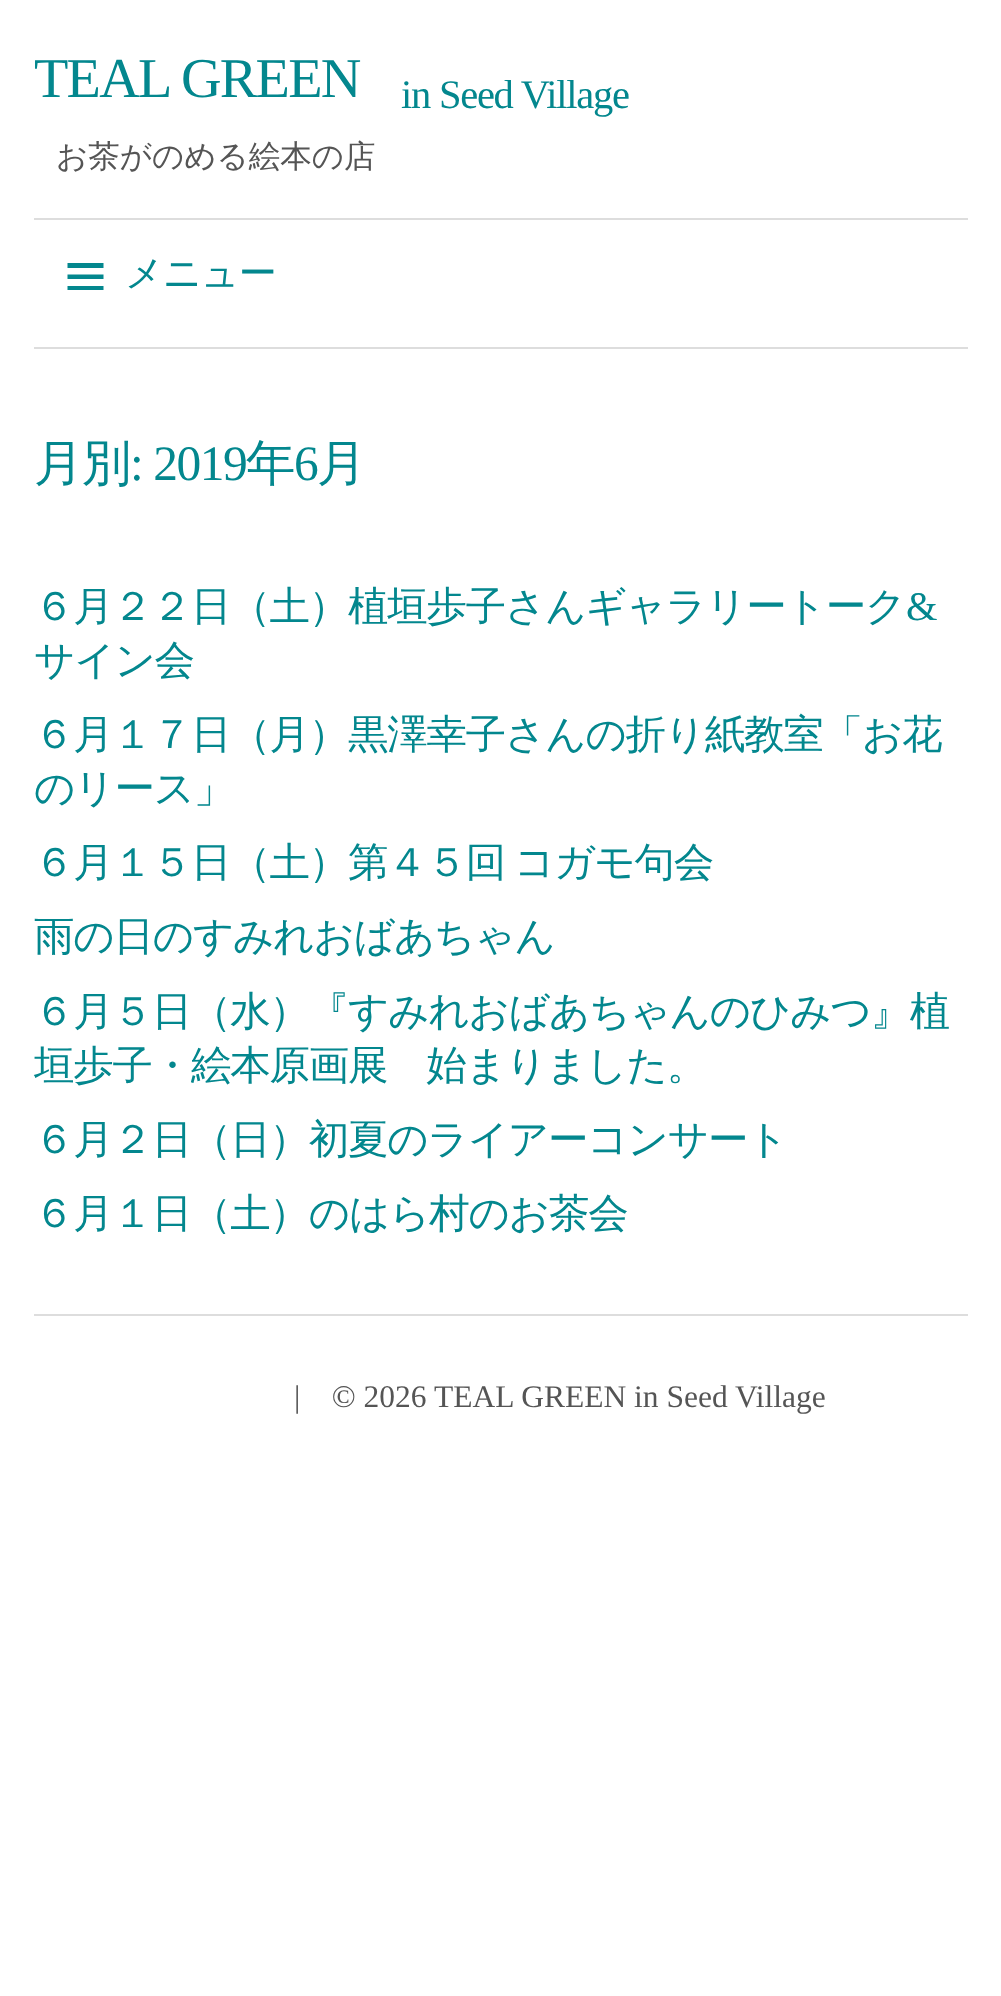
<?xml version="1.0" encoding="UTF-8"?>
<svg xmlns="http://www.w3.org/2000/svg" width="1001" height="1996">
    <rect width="100%" height="100%" fill="#FFFFFF"/>
    <text x="34" y="97" font-family="Liberation Serif" font-size="56.25" letter-spacing="-1.75" fill="#03878E">TEAL GREEN</text>
    <text x="401" y="108" font-family="Liberation Serif" font-size="40.5" letter-spacing="-1.25" fill="#03878E">in Seed Village</text>
    <text x="56" y="167" font-family="WenQuanYi Zen Hei" font-size="31.5" font-weight="500" fill="#555555">お茶がのめる絵本の店</text>
    <rect x="34" y="347" width="934" height="2" fill="#DDDDDD"/>
    <rect x="34" y="218" width="934" height="2" fill="#DDDDDD"/>
    <path d="M 67.5 290 V 286 H 103.5 V 290 Z M 67.5 279 V 274.5 H 103.5 V 279 Z M 67.5 268 V 263 H 103.5 V 268 Z" fill="#03878E"/>
    <text x="125" y="286" font-family="WenQuanYi Zen Hei" font-size="38" font-weight="500" letter-spacing="-1" fill="#03878E">メニュー</text>
    <text x="34" y="480" font-family="WenQuanYi Zen Hei" font-size="49.5" font-weight="500" letter-spacing="-1.5" fill="#03878E">月別</text>
    <text x="130" y="480" font-family="Liberation Serif" font-size="49.5" letter-spacing="-1.5" fill="#03878E">: 2019</text>
    <text x="246" y="480" font-family="WenQuanYi Zen Hei" font-size="49.5" font-weight="500" letter-spacing="-1.5" fill="#03878E">年</text>
    <text x="294" y="480" font-family="Liberation Serif" font-size="49.5" letter-spacing="-1.5" fill="#03878E">6</text>
    <text x="317" y="480" font-family="WenQuanYi Zen Hei" font-size="49.5" font-weight="500" letter-spacing="-1.5" fill="#03878E">月</text>
    <text x="34" y="620" font-family="WenQuanYi Zen Hei" font-size="40.5" font-weight="500" letter-spacing="-1.25" fill="#03878E">６月２２日（土）植垣歩子さんギャラリートーク</text>
    <text x="906" y="620" font-family="Liberation Serif" font-size="40.5" letter-spacing="-1.25" fill="#03878E">&amp;</text>
    <text font-family="WenQuanYi Zen Hei" font-size="40.5" font-weight="500" letter-spacing="-1.25" fill="#03878E">
        <tspan x="34" y="674">サイン会</tspan>
        <tspan x="34" y="748">６月１７日（月）黒澤幸子さんの折り紙教室「お花</tspan>
        <tspan x="34" y="802">のリース」</tspan>
        <tspan x="34" y="876" word-spacing="-2">６月１５日（土）第４５回 コガモ句会</tspan>
        <tspan x="34" y="950">雨の日のすみれおばあちゃん</tspan>
        <tspan x="34" y="1025">６月５日（水）『すみれおばあちゃんのひみつ』植</tspan>
        <tspan x="34" y="1079">垣歩子・絵本原画展　始まりました。</tspan>
        <tspan x="34" y="1153">６月２日（日）初夏のライアーコンサート</tspan>
        <tspan x="34" y="1227">６月１日（土）のはら村のお茶会</tspan>
    </text>
    <rect x="34" y="1314" width="934" height="2" fill="#DDDDDD"/>
    <text x="294" y="1407" font-family="Liberation Serif" font-size="31.5" fill="#555555" xml:space="preserve">|    © 2026</text>
    <text x="434" y="1407" font-family="Liberation Serif" font-size="31.5" fill="#555555">TEAL GREEN in Seed Village</text>
</svg>
